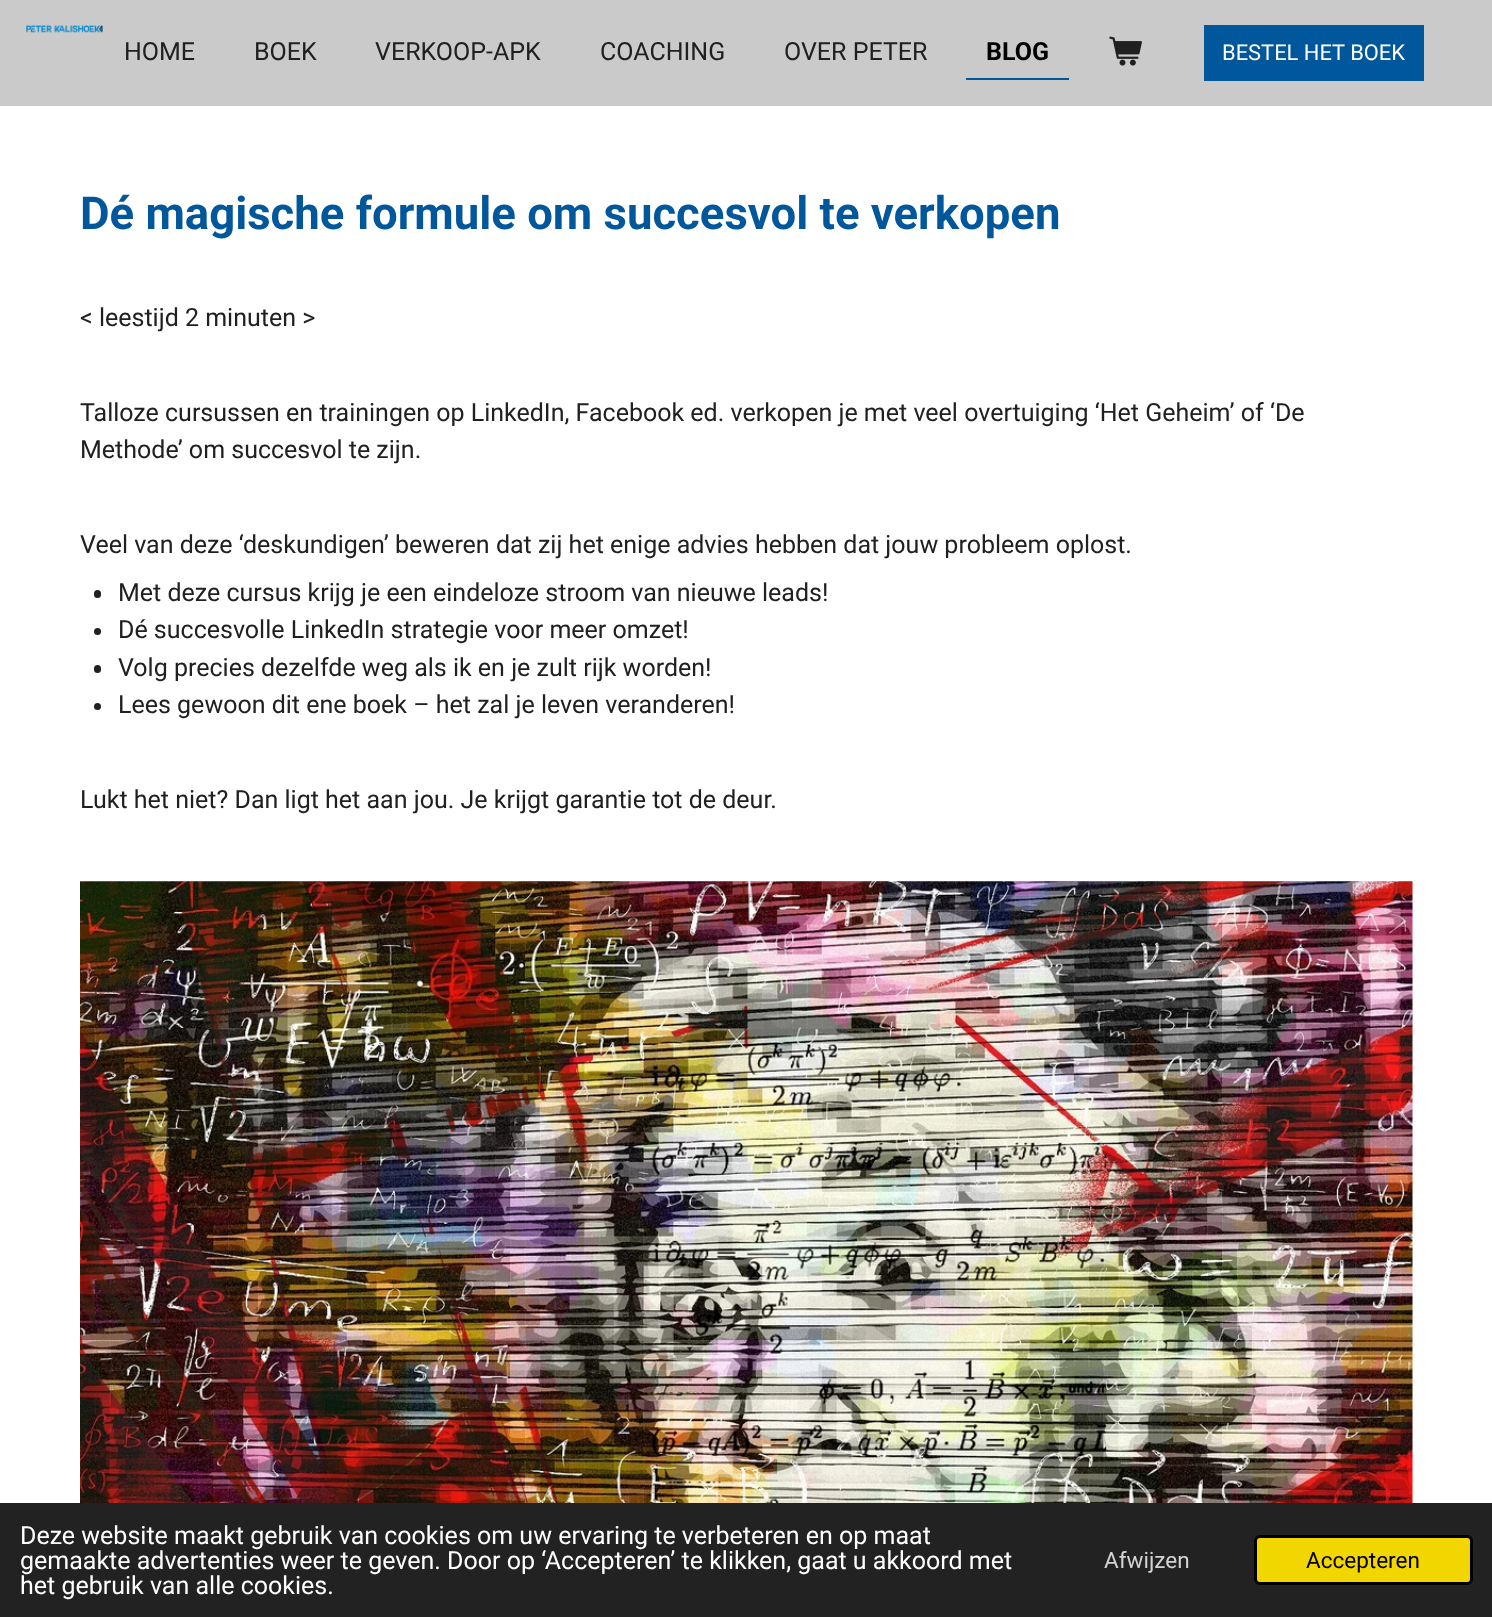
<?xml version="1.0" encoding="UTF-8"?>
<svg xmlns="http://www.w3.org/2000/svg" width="1492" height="1617">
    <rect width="100%" height="100%" fill="#CACACA"/>
    <image x="26" y="25" width="77" height="8" href="img_01.png"/>
    <text x="124" y="60" font-family="Roboto" font-size="25" fill="#202020">HOME</text>
    <text x="254" y="60" font-family="Roboto" font-size="25" fill="#202020">BOEK</text>
    <text x="375" y="60" font-family="Roboto" font-size="25" fill="#202020">VERKOOP-APK</text>
    <text x="600" y="60" font-family="Roboto" font-size="25" fill="#202020">COACHING</text>
    <text x="784" y="60" font-family="Roboto" font-size="25" fill="#202020">OVER PETER</text>
    <path d="M 966 28 V 80 H 1069 V 28 V 78 H 966 Z" fill="#01579B"/>
    <text x="986" y="60" font-family="Roboto" font-size="25" font-weight="700" fill="#000000">BLOG</text>
    <image x="1109" y="36" width="33" height="30" href="img_02.png"/>
    <rect x="1204" y="25" width="220" height="56" fill="#01579B"/>
    <text x="1222" y="60" font-family="Roboto" font-size="21.9" fill="#FFFFFF">BESTEL HET BOEK</text>
    <rect x="0" y="106" width="1492" height="1397" fill="#FFFFFF"/>
    <text x="80" y="229" font-family="Roboto" font-size="45.5" font-weight="700" fill="#01579B">Dé magische formule om succesvol te verkopen</text>
    <text x="80" y="326" font-family="Roboto" font-size="25" fill="#202020">&lt; leestijd 2 minuten &gt;</text>
    <text font-family="Roboto" font-size="25" fill="#202020">
        <tspan x="80" y="421">Talloze cursussen en trainingen op LinkedIn, Facebook ed. verkopen je met veel overtuiging ‘Het Geheim’ of ‘De</tspan>
        <tspan x="80" y="458">Methode’ om succesvol te zijn.</tspan>
    </text>
    <text x="80" y="553" font-family="Roboto" font-size="25" fill="#202020">Veel van deze ‘deskundigen’ beweren dat zij het enige advies hebben dat jouw probleem oplost.</text>
    <rect x="94" y="590" width="7" height="8" rx="3.5" fill="#202020"/>
    <text x="118" y="601" font-family="Roboto" font-size="25" fill="#202020">Met deze cursus krijg je een eindeloze stroom van nieuwe leads!</text>
    <circle cx="97.5" cy="631.5" r="3.5" fill="#202020"/>
    <text x="118" y="638" font-family="Roboto" font-size="25" fill="#202020">Dé succesvolle LinkedIn strategie voor meer omzet!</text>
    <rect x="94" y="665" width="7" height="8" rx="3.5" fill="#202020"/>
    <text x="118" y="676" font-family="Roboto" font-size="25" fill="#202020">Volg precies dezelfde weg als ik en je zult rijk worden!</text>
    <circle cx="97.5" cy="706.5" r="3.5" fill="#202020"/>
    <text x="118" y="713" font-family="Roboto" font-size="25" fill="#202020">Lees gewoon dit ene boek – het zal je leven veranderen!</text>
    <text x="80" y="808" font-family="Roboto" font-size="25" fill="#202020">Lukt het niet? Dan ligt het aan jou. Je krijgt garantie tot de deur.</text>
    <image x="80" y="881" width="1333" height="622" href="img_03.png"/>
    <rect x="0" y="1503" width="1492" height="114" fill="#222222"/>
    <text font-family="Roboto" font-size="25" fill="#FFFFFF">
        <tspan x="20" y="1544">Deze website maakt gebruik van cookies om uw ervaring te verbeteren en op maat</tspan>
        <tspan x="20" y="1569">gemaakte advertenties weer te geven. Door op ‘Accepteren’ te klikken, gaat u akkoord met</tspan>
        <tspan x="20" y="1594">het gebruik van alle cookies.</tspan>
    </text>
    <text x="1104" y="1568" font-family="Roboto" font-size="22.5" fill="#D3D3D3">Afwijzen</text>
    <rect x="1255.5" y="1536.5" width="216" height="47" rx="4.5" fill="#F1D600" stroke="#000000" stroke-width="3"/>
    <text x="1306" y="1568" font-family="Roboto" font-size="22.5" fill="#000000">Accepteren</text>
</svg>
